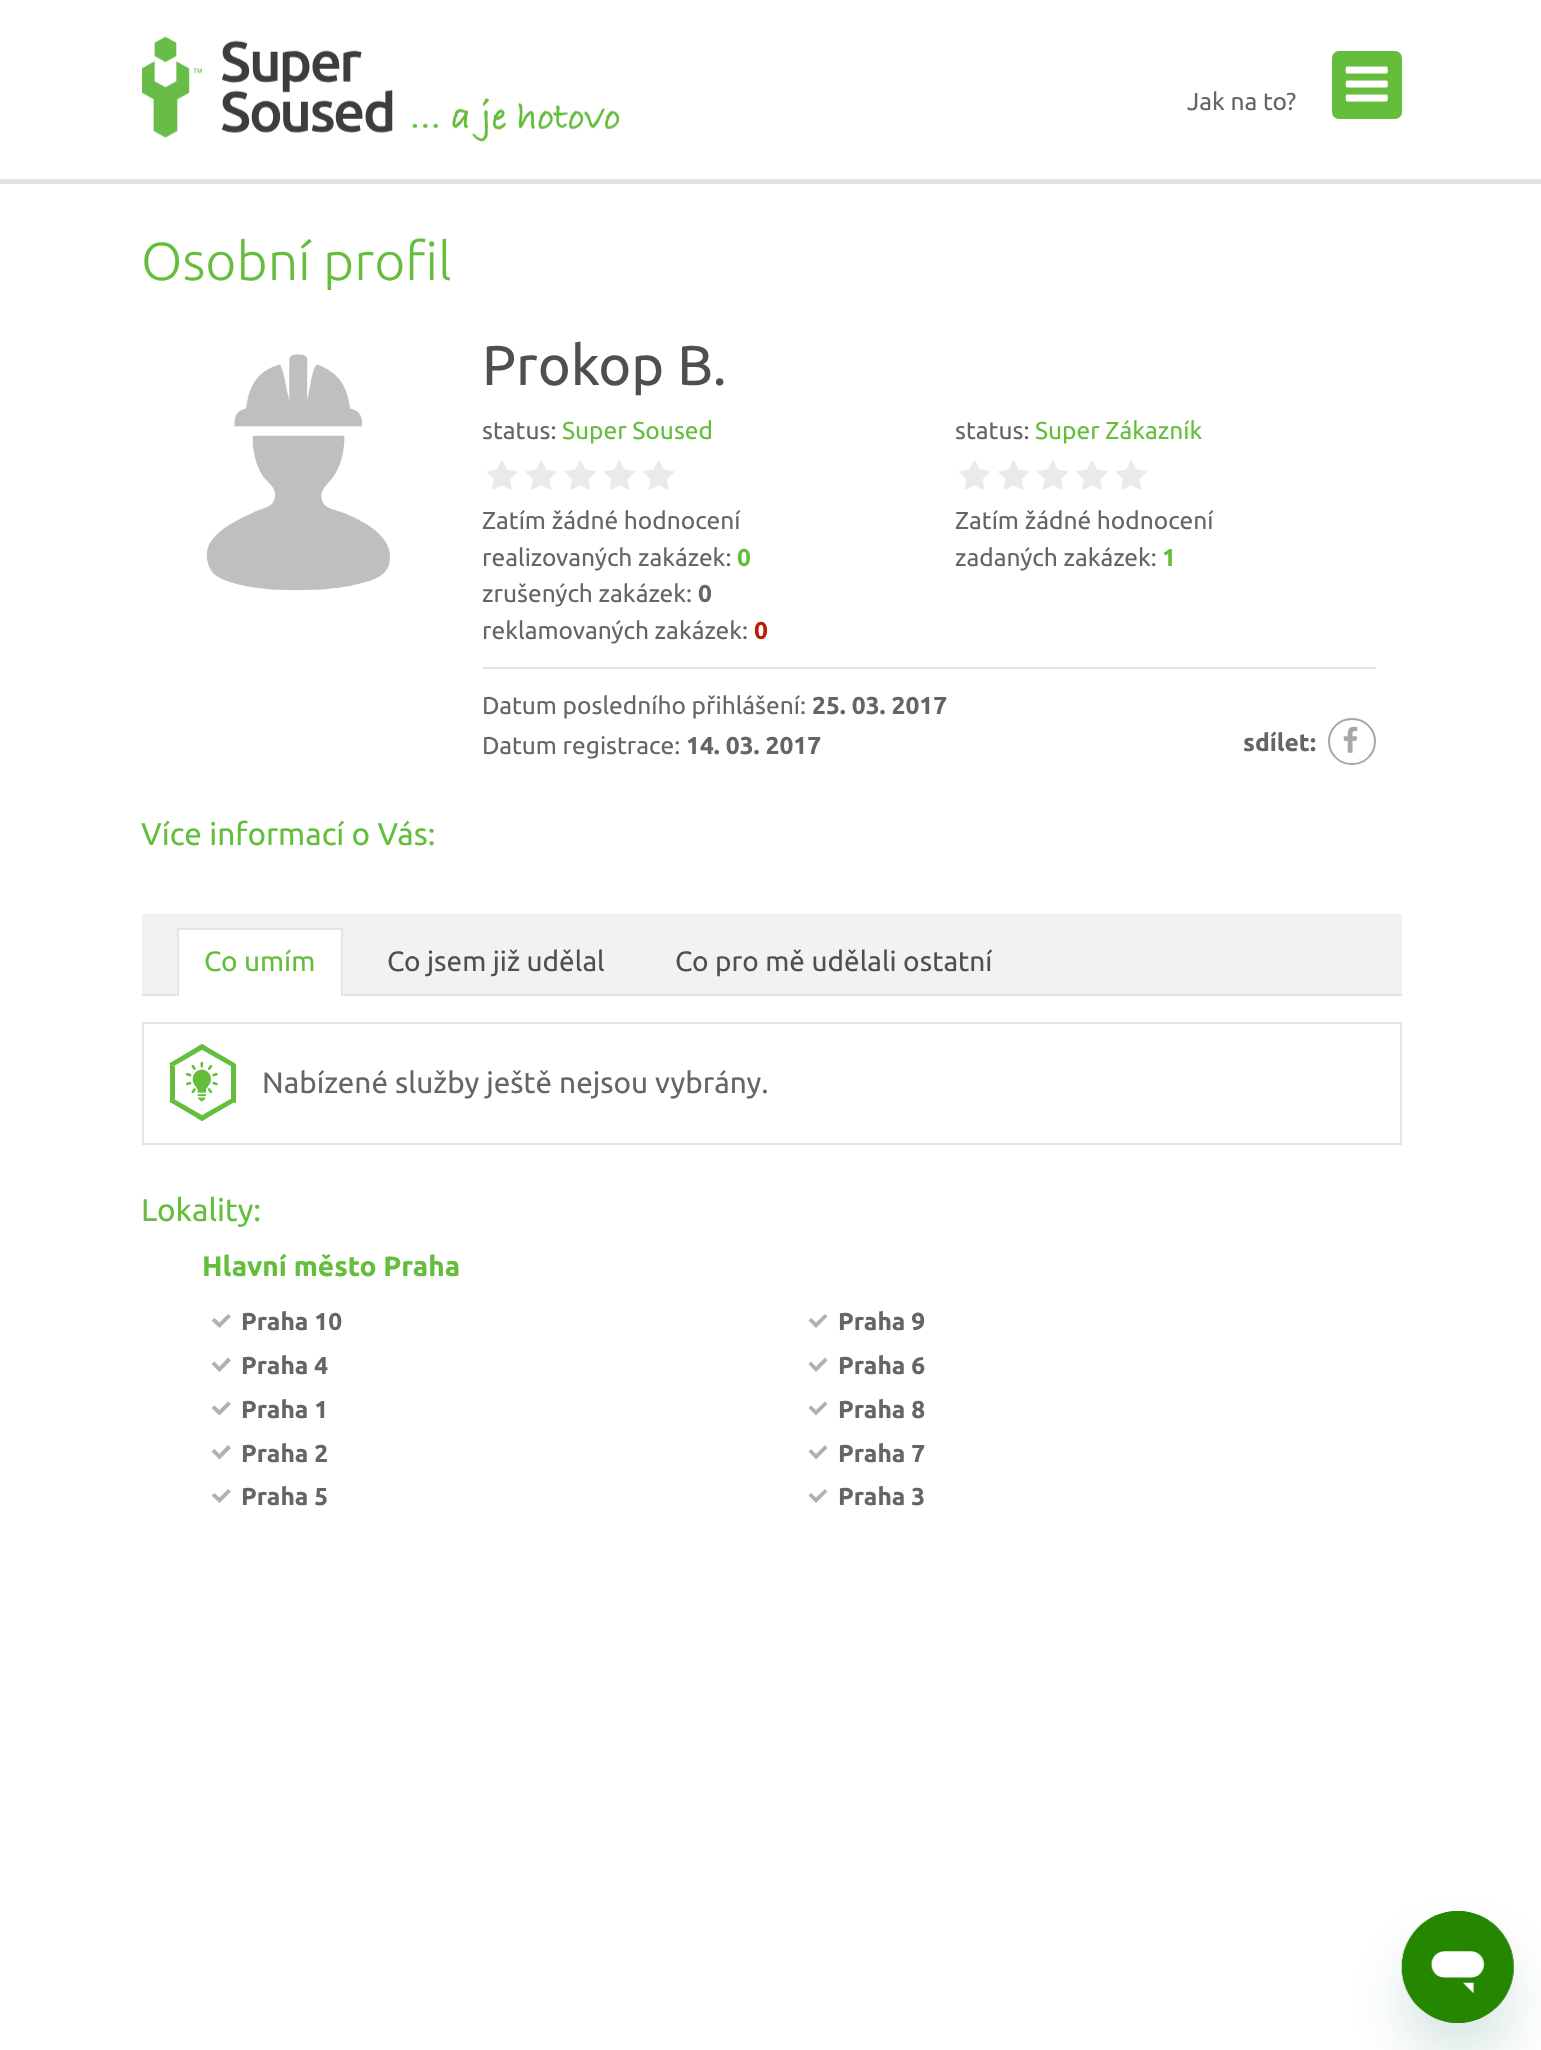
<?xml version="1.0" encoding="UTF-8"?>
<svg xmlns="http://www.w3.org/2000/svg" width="1541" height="2050">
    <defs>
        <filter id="blur1" x="-50%" y="-200%" width="200%" height="500%"><feGaussianBlur stdDeviation="26"/></filter>
    </defs>
    <rect width="100%" height="100%" fill="#FFFFFF"/>
    <image x="142" y="36" width="478" height="106" href="img_01.png"/>
    <text x="1187" y="110" font-family="Ubuntu" font-size="24.5" fill="#636569">Jak na to?</text>
    <rect x="1332" y="51" width="70" height="68" rx="7" fill="#64BE3C"/>
    <image x="1345" y="66" width="43" height="36" href="img_02.png"/>
    <rect x="0" y="179" width="1541" height="5" fill="#E3E3E3"/>
    <text x="141" y="280" font-family="Ubuntu" font-size="53.5" font-weight="300" fill="#64BE3C">Osobní profil</text>
    <image x="206" y="354" width="184" height="237" href="img_03.png"/>
    <text x="482" y="385" font-family="Ubuntu" font-size="56" fill="#4D4F52">Prokop B.</text>
    <text x="482" y="439" font-family="Ubuntu" font-size="24.5" fill="#636569">status:</text>
    <text x="562" y="439" font-family="Ubuntu" font-size="24.5" fill="#64BE3C">Super Soused</text>
    <image x="486" y="460" width="188" height="30" href="img_04.png"/>
    <text font-family="Ubuntu" font-size="24.5" fill="#636569">
        <tspan x="482" y="529">Zatím žádné hodnocení</tspan>
        <tspan x="482" y="566">realizovaných zakázek:</tspan>
    </text>
    <text x="737" y="566" font-family="Ubuntu" font-size="24.5" font-weight="700" fill="#64BE3C">0</text>
    <text x="482" y="602" font-family="Ubuntu" font-size="24.5" fill="#636569">zrušených zakázek:</text>
    <text x="698" y="602" font-family="Ubuntu" font-size="24.5" font-weight="700" fill="#636569">0</text>
    <text x="482" y="639" font-family="Ubuntu" font-size="24.5" fill="#636569">reklamovaných zakázek:</text>
    <text x="754" y="639" font-family="Ubuntu" font-size="24.5" font-weight="700" fill="#B91B07">0</text>
    <text x="955" y="439" font-family="Ubuntu" font-size="24.5" fill="#636569">status:</text>
    <text x="1035" y="439" font-family="Ubuntu" font-size="24.5" fill="#64BE3C">Super Zákazník</text>
    <image x="959" y="460" width="188" height="30" href="img_05.png"/>
    <text font-family="Ubuntu" font-size="24.5" fill="#636569">
        <tspan x="955" y="529">Zatím žádné hodnocení</tspan>
        <tspan x="955" y="566">zadaných zakázek:</tspan>
    </text>
    <text x="1162" y="566" font-family="Ubuntu" font-size="24.5" font-weight="700" fill="#64BE3C">1</text>
    <rect x="483" y="667" width="893" height="2" fill="#E4E4E4"/>
    <text x="482" y="714" font-family="Ubuntu" font-size="24.5" fill="#636569">Datum posledního přihlášení:</text>
    <text x="812" y="714" font-family="Ubuntu" font-size="24.5" font-weight="700" fill="#636569">25. 03. 2017</text>
    <text x="482" y="754" font-family="Ubuntu" font-size="24.5" fill="#636569">Datum registrace:</text>
    <text x="686" y="754" font-family="Ubuntu" font-size="24.5" font-weight="700" fill="#636569">14. 03. 2017</text>
    <text x="1243" y="751" font-family="Ubuntu" font-size="24.5" font-weight="700" fill="#636569">sdílet:</text>
    <rect x="1329" y="719" width="46" height="45" rx="22.5" fill="none" stroke="#A6A7A9" stroke-width="2"/>
    <image x="1343" y="726" width="15" height="27" href="img_06.png"/>
    <text x="141" y="845" font-family="Ubuntu" font-size="31.5" fill="#64BE3C">Více informací o Vás:</text>
    <rect x="142" y="914" width="1260" height="80" fill="#F1F3F3"/>
    <rect x="142" y="994" width="1260" height="2" fill="#E3E3E3"/>
    <rect x="179" y="930" width="162" height="66" fill="#FFFFFF"/>
    <rect x="177" y="928" width="166" height="2" fill="#E4E4E4"/>
    <rect x="341" y="928" width="2" height="68" fill="#E4E4E4"/>
    <rect x="177" y="928" width="2" height="68" fill="#E4E4E4"/>
    <text x="204" y="971" font-family="Ubuntu" font-size="28" fill="#64BE3C">Co umím</text>
    <text x="387" y="971" font-family="Ubuntu" font-size="28" fill="#4D4F52">Co jsem již udělal</text>
    <text x="675" y="971" font-family="Ubuntu" font-size="28" fill="#4D4F52">Co pro mě udělali ostatní</text>
    <rect x="143" y="1023" width="1258" height="121" fill="none" stroke="#E4E4E4" stroke-width="2"/>
    <rect x="231" y="1064" width="5" height="39" fill="#64BE3C"/>
    <rect x="170" y="1064" width="5" height="39" fill="#64BE3C"/>
    <path d="M 169 1063 L 202 1044 L 235 1063 L 202 1083 Z" fill="#FFFFFF"/>
    <path d="M 169 1063.5 L 202 1044 L 207 1047 L 174 1066 Z" fill="#64BE3C"/>
    <path d="M 197 1047 L 202 1044 L 235.5 1063.5 L 230.5 1066 Z" fill="#64BE3C"/>
    <path d="M 169 1102 L 202 1083 L 235 1102 L 202 1121 Z" fill="#FFFFFF"/>
    <path d="M 197 1118 L 230.5 1099 L 235.5 1101.5 L 202 1121 Z" fill="#64BE3C"/>
    <path d="M 169 1101.5 L 174 1099 L 207 1118 L 202 1121 Z" fill="#64BE3C"/>
    <image x="186" y="1061" width="32" height="41" href="img_07.png"/>
    <text x="262" y="1093" font-family="Ubuntu" font-size="29.75" fill="#636569">Nabízené služby ještě nejsou vybrány.</text>
    <text x="141" y="1221" font-family="Ubuntu" font-size="31.5" fill="#64BE3C">Lokality:</text>
    <text x="202" y="1276" font-family="Ubuntu" font-size="28" font-weight="700" fill="#64BE3C">Hlavní město Praha</text>
    <path d="M 231 1316.5 L 228 1314 L 219.5 1322.5 L 214.5 1318 L 211.5 1320.5 L 219.5 1328 Z M 231 1360.5 L 228 1357.5 L 219.5 1366.5 L 214.5 1361.5 L 211.5 1364 L 219.5 1372 Z" fill="#ADB2B6"/>
    <text x="241" y="1330" font-family="Ubuntu" font-size="24.5" font-weight="700" fill="#636569">Praha 10</text>
    <path d="M 827.5 1316.5 L 825 1314 L 816 1322.5 L 811 1318 L 808.5 1320.5 L 816 1328 Z M 827.5 1360.5 L 825 1357.5 L 816 1366.5 L 811 1361.5 L 808.5 1364 L 816 1372 Z" fill="#ADB2B6"/>
    <text x="838" y="1330" font-family="Ubuntu" font-size="24.5" font-weight="700" fill="#636569">Praha 9</text>
    <text x="241" y="1374" font-family="Ubuntu" font-size="24.5" font-weight="700" fill="#636569">Praha 4</text>
    <text x="838" y="1374" font-family="Ubuntu" font-size="24.5" font-weight="700" fill="#636569">Praha 6</text>
    <path d="M 231 1404 L 228 1401.5 L 219.5 1410 L 214.5 1405.5 L 211.5 1408 L 219.5 1415.5 Z M 231 1448 L 228 1445 L 219.5 1454 L 214.5 1449 L 211.5 1451.5 L 219.5 1459.5 Z" fill="#ADB2B6"/>
    <text x="241" y="1418" font-family="Ubuntu" font-size="24.5" font-weight="700" fill="#636569">Praha 1</text>
    <path d="M 827.5 1404 L 825 1401.5 L 816 1410 L 811 1405.5 L 808.5 1408 L 816 1415.5 Z M 827.5 1448 L 825 1445 L 816 1454 L 811 1449 L 808.5 1451.5 L 816 1459.5 Z" fill="#ADB2B6"/>
    <text x="838" y="1418" font-family="Ubuntu" font-size="24.5" font-weight="700" fill="#636569">Praha 8</text>
    <text x="241" y="1462" font-family="Ubuntu" font-size="24.5" font-weight="700" fill="#636569">Praha 2</text>
    <text x="838" y="1462" font-family="Ubuntu" font-size="24.5" font-weight="700" fill="#636569">Praha 7</text>
    <path d="M 231 1491.5 L 228 1489 L 219.5 1497.5 L 214.5 1493 L 211.5 1495.5 L 219.5 1503 Z" fill="#ADB2B6"/>
    <text x="241" y="1505" font-family="Ubuntu" font-size="24.5" font-weight="700" fill="#636569">Praha 5</text>
    <path d="M 827.5 1491.5 L 825 1489 L 816 1497.5 L 811 1493 L 808.5 1495.5 L 816 1503 Z" fill="#ADB2B6"/>
    <text x="838" y="1505" font-family="Ubuntu" font-size="24.5" font-weight="700" fill="#636569">Praha 3</text>
    <rect x="1402" y="1946" width="112" height="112" rx="56" fill="#17494D" fill-opacity="0.15" filter="url(#blur1)"/>
    <image x="1401" y="1911" width="113" height="112" href="img_08.png"/>
</svg>
